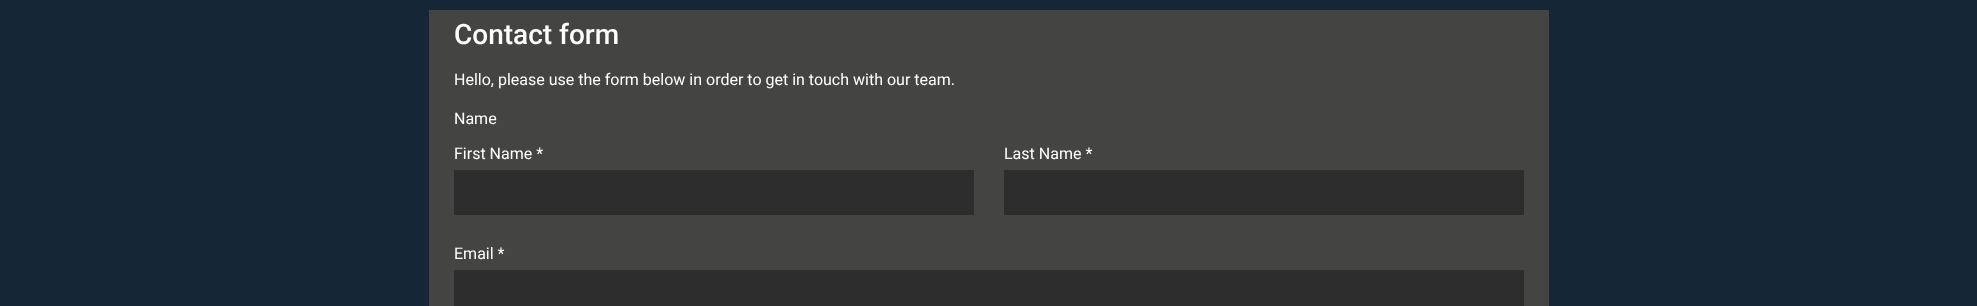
<?xml version="1.0" encoding="UTF-8"?>
<svg xmlns="http://www.w3.org/2000/svg" width="1977" height="306">
    <rect width="100%" height="100%" fill="#152636"/>
    <rect x="429" y="10" width="1120" height="296" fill="#444442"/>
    <text x="454" y="44" font-family="Roboto" font-size="28" font-weight="500" fill="#FFFFFF">Contact form</text>
    <text x="454" y="85" font-family="Roboto" font-size="16" fill="#FFFFFF">Hello, please use the form below in order to get in touch with our team.</text>
    <text x="454" y="124" font-family="Roboto" font-size="16" fill="#FFFFFF">Name</text>
    <text x="454" y="159" font-family="Roboto" font-size="16" fill="#FFFFFF">First Name *</text>
    <rect x="454" y="170" width="520" height="45" fill="#2D2D2D"/>
    <text x="1004" y="159" font-family="Roboto" font-size="16" fill="#FFFFFF">Last Name *</text>
    <rect x="1004" y="170" width="520" height="45" fill="#2D2D2D"/>
    <text x="454" y="259" font-family="Roboto" font-size="16" fill="#FFFFFF">Email *</text>
    <rect x="454" y="270" width="1070" height="36" fill="#2D2D2D"/>
</svg>
